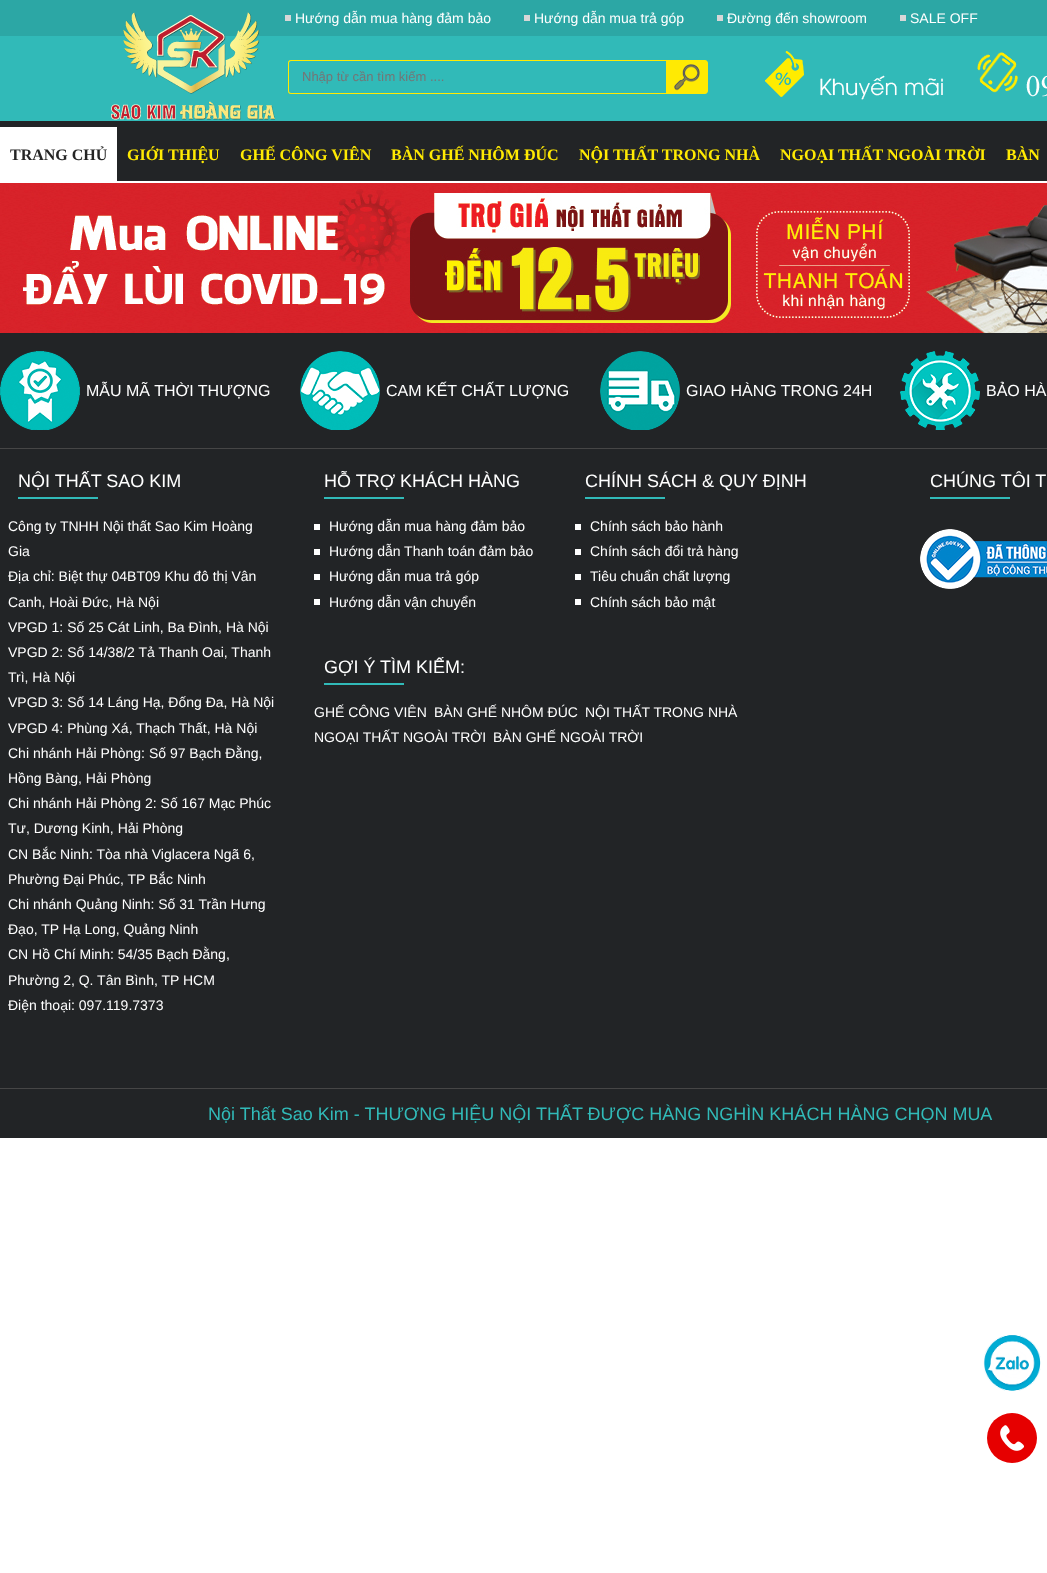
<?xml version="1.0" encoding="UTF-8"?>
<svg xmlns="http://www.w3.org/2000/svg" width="1047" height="1573">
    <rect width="100%" height="100%" fill="#FFFFFF"/>
    <rect x="0" y="0" width="1047" height="36" fill="#2CA7A5"/>
    <rect x="285" y="15" width="6" height="6" fill="#D7D7D7"/>
    <text x="295" y="23" font-family="Liberation Sans" font-size="14" fill="#FFFFFF">Hướng dẫn mua hàng đảm bảo</text>
    <rect x="524" y="15" width="6" height="6" fill="#D7D7D7"/>
    <text x="534" y="23" font-family="Liberation Sans" font-size="14" fill="#FFFFFF">Hướng dẫn mua trả góp</text>
    <rect x="717" y="15" width="6" height="6" fill="#D7D7D7"/>
    <text x="727" y="23" font-family="Liberation Sans" font-size="14" fill="#FFFFFF">Đường đến showroom</text>
    <rect x="900" y="15" width="6" height="6" fill="#D7D7D7"/>
    <text x="910" y="23" font-family="Liberation Sans" font-size="14" fill="#FFFFFF">SALE OFF</text>
    <rect x="0" y="36" width="1047" height="85" fill="#31BAB8"/>
    <image x="111" y="12" width="164" height="108" href="img_01.png"/>
    <path d="M 291 60 H 666 V 94 H 291 C 289 94 288 93 288 91 V 63 C 288 61 289 60 291 60 Z M 291 61 H 666 V 93 H 291 C 290 93 289 92 289 91 V 63 C 289 62 290 61 291 61 Z" fill="#FFEA03" fill-rule="evenodd"/>
    <text x="302" y="81" font-family="Liberation Sans" font-size="13" fill="#757575">Nhập từ cần tìm kiếm ....</text>
    <path d="M 666 60 H 705 C 706.5 60 708 61.5 708 63 V 91 C 708 92.5 706.5 94 705 94 H 666 Z" fill="#FFEA03"/>
    <image x="674" y="64" width="26" height="27" href="img_02.png"/>
    <image x="765" y="51" width="178" height="49" href="img_03.png"/>
    <image x="977" y="52" width="70" height="45" href="img_04.png"/>
    <rect x="0" y="121" width="1047" height="60" fill="#222426"/>
    <rect x="0" y="127" width="117" height="54" fill="#FFFFFF"/>
    <text x="10" y="160" font-family="Liberation Serif" font-size="16" font-weight="700" fill="#252525">TRANG CHỦ</text>
    <text x="127" y="160" font-family="Liberation Serif" font-size="16" font-weight="700" fill="#FFEA03">GIỚI THIỆU</text>
    <text x="240" y="160" font-family="Liberation Serif" font-size="16" font-weight="700" fill="#FFEA03">GHẾ CÔNG VIÊN</text>
    <text x="391" y="160" font-family="Liberation Serif" font-size="16" font-weight="700" fill="#FFEA03">BÀN GHẾ NHÔM ĐÚC</text>
    <text x="579" y="160" font-family="Liberation Serif" font-size="16" font-weight="700" fill="#FFEA03">NỘI THẤT TRONG NHÀ</text>
    <text x="780" y="160" font-family="Liberation Serif" font-size="16" font-weight="700" fill="#FFEA03">NGOẠI THẤT NGOÀI TRỜI</text>
    <text x="1006" y="160" font-family="Liberation Serif" font-size="16" font-weight="700" fill="#FFEA03">BÀN</text>
    <image x="0" y="183" width="1047" height="150" href="img_05.png"/>
    <rect x="0" y="333" width="1047" height="115" fill="#222426"/>
    <image x="0" y="351" width="80" height="79" href="img_06.png"/>
    <text x="86" y="396" font-family="Liberation Sans" font-size="16" fill="#FFFFFF">MẪU MÃ THỜI THƯỢNG</text>
    <image x="300" y="351" width="80" height="79" href="img_07.png"/>
    <text x="386" y="396" font-family="Liberation Sans" font-size="16" fill="#FFFFFF">CAM KẾT CHẤT LƯỢNG</text>
    <image x="600" y="351" width="80" height="79" href="img_08.png"/>
    <text x="686" y="396" font-family="Liberation Sans" font-size="16" fill="#FFFFFF">GIAO HÀNG TRONG 24H</text>
    <image x="900" y="351" width="80" height="79" href="img_09.png"/>
    <text x="986" y="396" font-family="Liberation Sans" font-size="16" fill="#FFFFFF">BẢO HÀ</text>
    <rect x="0" y="449" width="1047" height="639" fill="#222426"/>
    <rect x="0" y="448" width="1047" height="1" fill="#464646"/>
    <text x="18" y="487" font-family="Liberation Sans" font-size="18" fill="#FFFFFF">NỘI THẤT SAO KIM</text>
    <rect x="18" y="497" width="80" height="2" fill="#31BAB8"/>
    <text font-family="Liberation Sans" font-size="14" fill="#FFFFFF">
        <tspan x="8" y="531">Công ty TNHH Nội thất Sao Kim Hoàng</tspan>
        <tspan x="8" y="556">Gia</tspan>
        <tspan x="8" y="581">Địa chỉ: Biệt thự 04BT09 Khu đô thị Vân</tspan>
        <tspan x="8" y="607">Canh, Hoài Đức, Hà Nội</tspan>
        <tspan x="8" y="632">VPGD 1: Số 25 Cát Linh, Ba Đình, Hà Nội</tspan>
        <tspan x="8" y="657">VPGD 2: Số 14/38/2 Tả Thanh Oai, Thanh</tspan>
        <tspan x="8" y="682">Trì, Hà Nội</tspan>
        <tspan x="8" y="707">VPGD 3: Số 14 Láng Hạ, Đống Đa, Hà Nội</tspan>
        <tspan x="8" y="733">VPGD 4: Phùng Xá, Thạch Thất, Hà Nội</tspan>
        <tspan x="8" y="758">Chi nhánh Hải Phòng: Số 97 Bạch Đằng,</tspan>
        <tspan x="8" y="783">Hồng Bàng, Hải Phòng</tspan>
        <tspan x="8" y="808">Chi nhánh Hải Phòng 2: Số 167 Mạc Phúc</tspan>
        <tspan x="8" y="833">Tư, Dương Kinh, Hải Phòng</tspan>
        <tspan x="8" y="859">CN Bắc Ninh: Tòa nhà Viglacera Ngã 6,</tspan>
        <tspan x="8" y="884">Phường Đại Phúc, TP Bắc Ninh</tspan>
        <tspan x="8" y="909">Chi nhánh Quảng Ninh: Số 31 Trần Hưng</tspan>
        <tspan x="8" y="934">Đạo, TP Hạ Long, Quảng Ninh</tspan>
        <tspan x="8" y="959">CN Hồ Chí Minh: 54/35 Bạch Đằng,</tspan>
        <tspan x="8" y="985">Phường 2, Q. Tân Bình, TP HCM</tspan>
        <tspan x="8" y="1010">Điện thoại: 097.119.7373</tspan>
    </text>
    <text x="324" y="487" font-family="Liberation Sans" font-size="18" fill="#FFFFFF">HỖ TRỢ KHÁCH HÀNG</text>
    <rect x="324" y="497" width="80" height="2" fill="#31BAB8"/>
    <rect x="314" y="524" width="6" height="6" fill="#FFFFFF"/>
    <text x="329" y="531" font-family="Liberation Sans" font-size="14" fill="#FFFFFF">Hướng dẫn mua hàng đảm bảo</text>
    <rect x="314" y="549" width="6" height="6" fill="#FFFFFF"/>
    <text x="329" y="556" font-family="Liberation Sans" font-size="14" fill="#FFFFFF">Hướng dẫn Thanh toán đảm bảo</text>
    <rect x="314" y="574" width="6" height="6" fill="#FFFFFF"/>
    <text x="329" y="581" font-family="Liberation Sans" font-size="14" fill="#FFFFFF">Hướng dẫn mua trả góp</text>
    <rect x="314" y="599" width="6" height="6" fill="#FFFFFF"/>
    <text x="329" y="607" font-family="Liberation Sans" font-size="14" fill="#FFFFFF">Hướng dẫn vận chuyển</text>
    <text x="585" y="487" font-family="Liberation Sans" font-size="18" fill="#FFFFFF">CHÍNH SÁCH &amp; QUY ĐỊNH</text>
    <rect x="585" y="497" width="80" height="2" fill="#31BAB8"/>
    <rect x="575" y="524" width="6" height="6" fill="#FFFFFF"/>
    <text x="590" y="531" font-family="Liberation Sans" font-size="14" fill="#FFFFFF">Chính sách bảo hành</text>
    <rect x="575" y="549" width="6" height="6" fill="#FFFFFF"/>
    <text x="590" y="556" font-family="Liberation Sans" font-size="14" fill="#FFFFFF">Chính sách đổi trả hàng</text>
    <rect x="575" y="574" width="6" height="6" fill="#FFFFFF"/>
    <text x="590" y="581" font-family="Liberation Sans" font-size="14" fill="#FFFFFF">Tiêu chuẩn chất lượng</text>
    <rect x="575" y="599" width="6" height="6" fill="#FFFFFF"/>
    <text x="590" y="607" font-family="Liberation Sans" font-size="14" fill="#FFFFFF">Chính sách bảo mật</text>
    <text x="324" y="673" font-family="Liberation Sans" font-size="18" fill="#FFFFFF">GỢI Ý TÌM KIẾM:</text>
    <rect x="324" y="683" width="80" height="2" fill="#31BAB8"/>
    <text x="314" y="717" font-family="Liberation Sans" font-size="14" fill="#FFFFFF">GHẾ CÔNG VIÊN</text>
    <text x="434" y="717" font-family="Liberation Sans" font-size="14" fill="#FFFFFF">BÀN GHẾ NHÔM ĐÚC</text>
    <text x="585" y="717" font-family="Liberation Sans" font-size="14" fill="#FFFFFF">NỘI THẤT TRONG NHÀ</text>
    <text x="314" y="742" font-family="Liberation Sans" font-size="14" fill="#FFFFFF">NGOẠI THẤT NGOÀI TRỜI</text>
    <text x="493" y="742" font-family="Liberation Sans" font-size="14" fill="#FFFFFF">BÀN GHẾ NGOÀI TRỜI</text>
    <text x="930" y="487" font-family="Liberation Sans" font-size="18" fill="#FFFFFF">CHÚNG TÔI T</text>
    <rect x="930" y="497" width="80" height="2" fill="#31BAB8"/>
    <image x="920" y="529" width="127" height="60" href="img_10.png"/>
    <rect x="0" y="1089" width="1047" height="49" fill="#222426"/>
    <rect x="0" y="1088" width="1047" height="1" fill="#464646"/>
    <text x="208" y="1120" font-family="Liberation Sans" font-size="18" fill="#31BAB8">Nội Thất Sao Kim - THƯƠNG HIỆU NỘI THẤT ĐƯỢC HÀNG NGHÌN KHÁCH HÀNG CHỌN MUA</text>
    <image x="983" y="1335" width="58" height="56" href="img_11.png"/>
    <circle cx="1012" cy="1438" r="25" fill="#E60000"/>
    <image x="1000" y="1425" width="24" height="26" href="img_12.png"/>
</svg>
